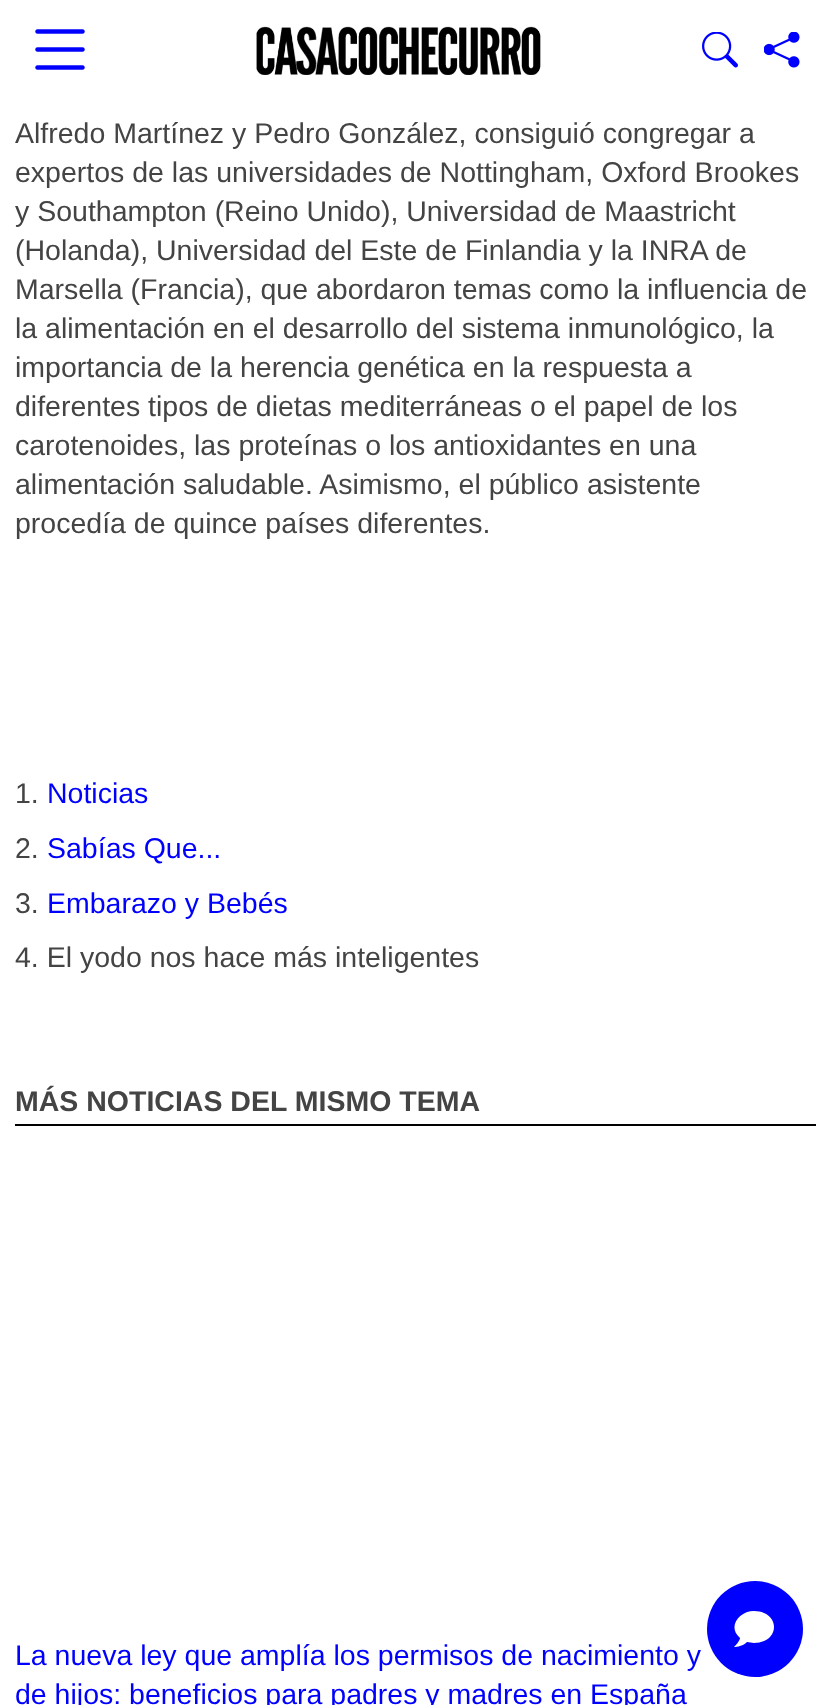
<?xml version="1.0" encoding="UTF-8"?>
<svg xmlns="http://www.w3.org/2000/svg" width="830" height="1705">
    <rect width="100%" height="100%" fill="#FFFFFF"/>
    <image x="35" y="29" width="50" height="41" href="img_01.png"/>
    <image x="256" y="26" width="285" height="49" href="img_02.png"/>
    <image x="702" y="32" width="36" height="36" href="img_03.png"/>
    <image x="764" y="32" width="36" height="36" href="img_04.png"/>
    <text font-family="Arimo" font-size="28.5" fill="#444444">
        <tspan x="15" y="143">Alfredo Martínez y Pedro González, consiguió congregar a</tspan>
        <tspan x="15" y="182">expertos de las universidades de Nottingham, Oxford Brookes</tspan>
        <tspan x="15" y="221">y Southampton (Reino Unido), Universidad de Maastricht</tspan>
        <tspan x="15" y="260">(Holanda), Universidad del Este de Finlandia y la INRA de</tspan>
        <tspan x="15" y="299">Marsella (Francia), que abordaron temas como la influencia de</tspan>
        <tspan x="15" y="338">la alimentación en el desarrollo del sistema inmunológico, la</tspan>
        <tspan x="15" y="377">importancia de la herencia genética en la respuesta a</tspan>
        <tspan x="15" y="416">diferentes tipos de dietas mediterráneas o el papel de los</tspan>
        <tspan x="15" y="455">carotenoides, las proteínas o los antioxidantes en una</tspan>
        <tspan x="15" y="494">alimentación saludable. Asimismo, el público asistente</tspan>
        <tspan x="15" y="533">procedía de quince países diferentes.</tspan>
    </text>
    <text x="15" y="803" font-family="Arimo" font-size="28.5" fill="#444444">1.</text>
    <text x="47" y="803" font-family="Arimo" font-size="28.5" fill="#0000FF">Noticias</text>
    <text x="15" y="858" font-family="Arimo" font-size="28.5" fill="#444444">2.</text>
    <text x="47" y="858" font-family="Arimo" font-size="28.5" fill="#0000FF">Sabías Que...</text>
    <text x="15" y="913" font-family="Arimo" font-size="28.5" fill="#444444">3.</text>
    <text x="47" y="913" font-family="Arimo" font-size="28.5" fill="#0000FF">Embarazo y Bebés</text>
    <text x="15" y="967" font-family="Arimo" font-size="28.5" fill="#444444">4. El yodo nos hace más inteligentes</text>
    <rect x="15" y="1124" width="801" height="2" fill="#000000"/>
    <text x="15" y="1111" font-family="Arimo" font-size="28.5" font-weight="700" fill="#444444">MÁS NOTICIAS DEL MISMO TEMA</text>
    <text font-family="Arimo" font-size="28.5" fill="#0000FF">
        <tspan x="15" y="1665">La nueva ley que amplía los permisos de nacimiento y</tspan>
        <tspan x="15" y="1704">de hijos: beneficios para padres y madres en España</tspan>
    </text>
    <circle cx="755" cy="1629" r="48" fill="#0000FF"/>
    <path d="M 754 1611 C 766 1611 774 1618 774 1627 C 774 1636 766 1643 754 1643 L 747 1642 C 742 1647 734 1647 734 1647 C 739 1642 740 1639 740 1638 C 727 1627 739 1611 754 1611" fill="#FFFFFF"/>
</svg>
